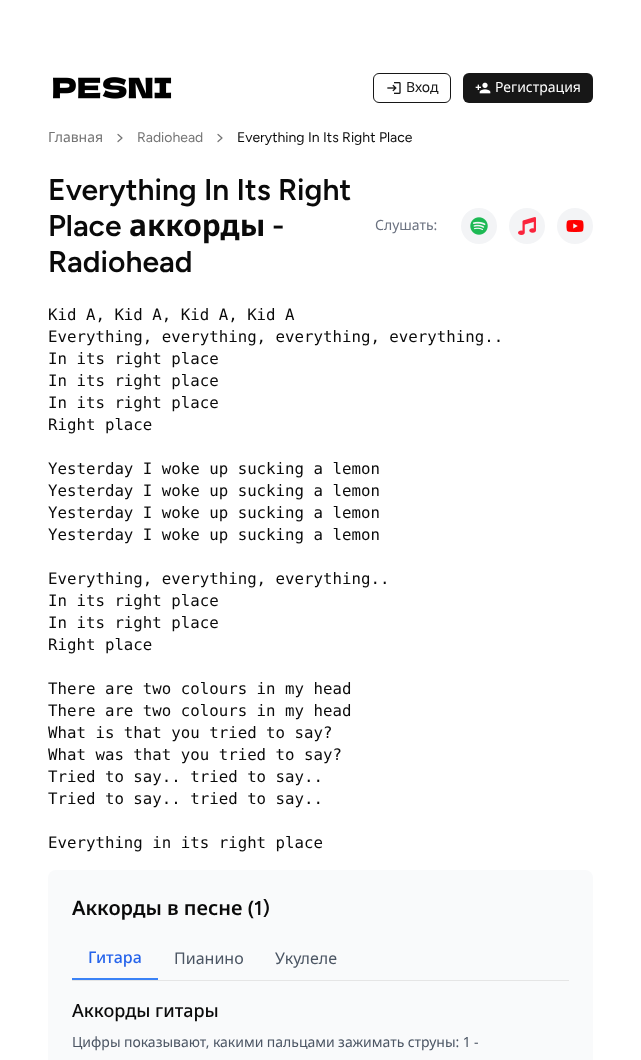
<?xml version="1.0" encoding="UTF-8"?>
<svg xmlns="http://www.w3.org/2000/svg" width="641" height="1060">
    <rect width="100%" height="100%" fill="#FFFFFF"/>
    <image x="53" y="77" width="119" height="22" href="img_01.png"/>
    <rect x="373.5" y="73.5" width="77" height="29" rx="5.5" fill="none" stroke="#171717"/>
    <image x="387" y="82" width="14" height="12" href="img_02.png"/>
    <text x="406" y="92" font-family="Noto Sans" font-size="14" fill="#171717">Вход</text>
    <rect x="463" y="73" width="130" height="30" rx="6" fill="#171717"/>
    <image x="475" y="82" width="16" height="12" href="img_03.png"/>
    <text x="495" y="92" font-family="Noto Sans" font-size="14" fill="#FFFFFF">Регистрация</text>
    <text x="48" y="142" font-family="Noto Sans" font-size="14" fill="#737373">Главная</text>
    <path d="M 118 141.5 L 122 138 L 118 134.5" fill="none" stroke="#737373" stroke-width="1.2" stroke-linecap="round" stroke-linejoin="round"/>
    <text x="137" y="142" font-family="Figtree" font-size="14" font-weight="300" fill="#737373">Radiohead</text>
    <path d="M 218 141.5 L 222 138 L 218 134.5" fill="none" stroke="#737373" stroke-width="1.2" stroke-linecap="round" stroke-linejoin="round"/>
    <text x="237" y="142" font-family="Figtree" font-size="14" font-weight="300" fill="#0A0A0A">Everything In Its Right Place</text>
    <text font-family="Figtree" font-size="30" font-weight="600" fill="#0A0A0A">
        <tspan x="48" y="200">Everything In Its Right</tspan>
        <tspan x="48" y="236">Place</tspan>
    </text>
    <text x="129" y="236" font-family="Noto Sans" font-size="30" font-weight="700" fill="#0A0A0A">аккорды</text>
    <text x="272" y="236" font-family="Figtree" font-size="30" font-weight="600" fill="#0A0A0A">-</text>
    <text x="48" y="272" font-family="Figtree" font-size="30" font-weight="600" fill="#0A0A0A">Radiohead</text>
    <text x="375" y="230" font-family="Noto Sans" font-size="14" fill="#6B7280">Слушать:</text>
    <circle cx="479" cy="226" r="18" fill="#F3F4F6"/>
    <image x="470" y="217" width="18" height="18" href="img_04.png"/>
    <circle cx="527" cy="226" r="18" fill="#F3F4F6"/>
    <image x="518" y="217" width="18" height="18" href="img_05.png"/>
    <circle cx="575" cy="226" r="18" fill="#F3F4F6"/>
    <image x="566" y="220" width="18" height="12" href="img_06.png"/>
    <text font-family="DejaVu Sans Mono" font-size="15.75" fill="#0A0A0A">
        <tspan x="48" y="320">Kid A, Kid A, Kid A, Kid A</tspan>
        <tspan x="48" y="342">Everything, everything, everything, everything..</tspan>
        <tspan x="48" y="364">In its right place</tspan>
        <tspan x="48" y="386">In its right place</tspan>
        <tspan x="48" y="408">In its right place</tspan>
        <tspan x="48" y="430">Right place</tspan>
    </text>
    <text font-family="DejaVu Sans Mono" font-size="15.75" fill="#0A0A0A">
        <tspan x="48" y="474">Yesterday I woke up sucking a lemon</tspan>
        <tspan x="48" y="496">Yesterday I woke up sucking a lemon</tspan>
        <tspan x="48" y="518">Yesterday I woke up sucking a lemon</tspan>
        <tspan x="48" y="540">Yesterday I woke up sucking a lemon</tspan>
    </text>
    <text font-family="DejaVu Sans Mono" font-size="15.75" fill="#0A0A0A">
        <tspan x="48" y="584">Everything, everything, everything..</tspan>
        <tspan x="48" y="606">In its right place</tspan>
        <tspan x="48" y="628">In its right place</tspan>
        <tspan x="48" y="650">Right place</tspan>
    </text>
    <text font-family="DejaVu Sans Mono" font-size="15.75" fill="#0A0A0A">
        <tspan x="48" y="694">There are two colours in my head</tspan>
        <tspan x="48" y="716">There are two colours in my head</tspan>
        <tspan x="48" y="738">What is that you tried to say?</tspan>
        <tspan x="48" y="760">What was that you tried to say?</tspan>
        <tspan x="48" y="782">Tried to say.. tried to say..</tspan>
        <tspan x="48" y="804">Tried to say.. tried to say..</tspan>
    </text>
    <text x="48" y="848" font-family="DejaVu Sans Mono" font-size="15.75" fill="#0A0A0A">Everything in its right place</text>
    <rect x="48" y="870" width="545" height="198" rx="8" fill="#F9FAFB"/>
    <text x="72" y="915" font-family="Noto Sans" font-size="20" font-weight="600" fill="#0A0A0A">Аккорды в песне (</text>
    <text x="254" y="915" font-family="Figtree" font-size="20" font-weight="600" fill="#0A0A0A">1)</text>
    <rect x="72" y="980" width="497" height="1" fill="#E5E5E5"/>
    <rect x="72" y="978" width="86" height="2" fill="#3B82F6"/>
    <text x="88" y="963" font-family="Noto Sans" font-size="16" font-weight="500" fill="#2563EB">Гитара</text>
    <text x="174" y="964" font-family="Noto Sans" font-size="16" fill="#4B5563">Пианино</text>
    <text x="275" y="964" font-family="Noto Sans" font-size="16" fill="#4B5563">Укулеле</text>
    <text x="72" y="1017" font-family="Noto Sans" font-size="18" font-weight="500" fill="#0A0A0A">Аккорды гитары</text>
    <text x="72" y="1047" word-spacing="-0.25" font-family="Noto Sans" font-size="14" fill="#4B5563">Цифры показывают, какими пальцами зажимать струны: 1 -</text>
</svg>
